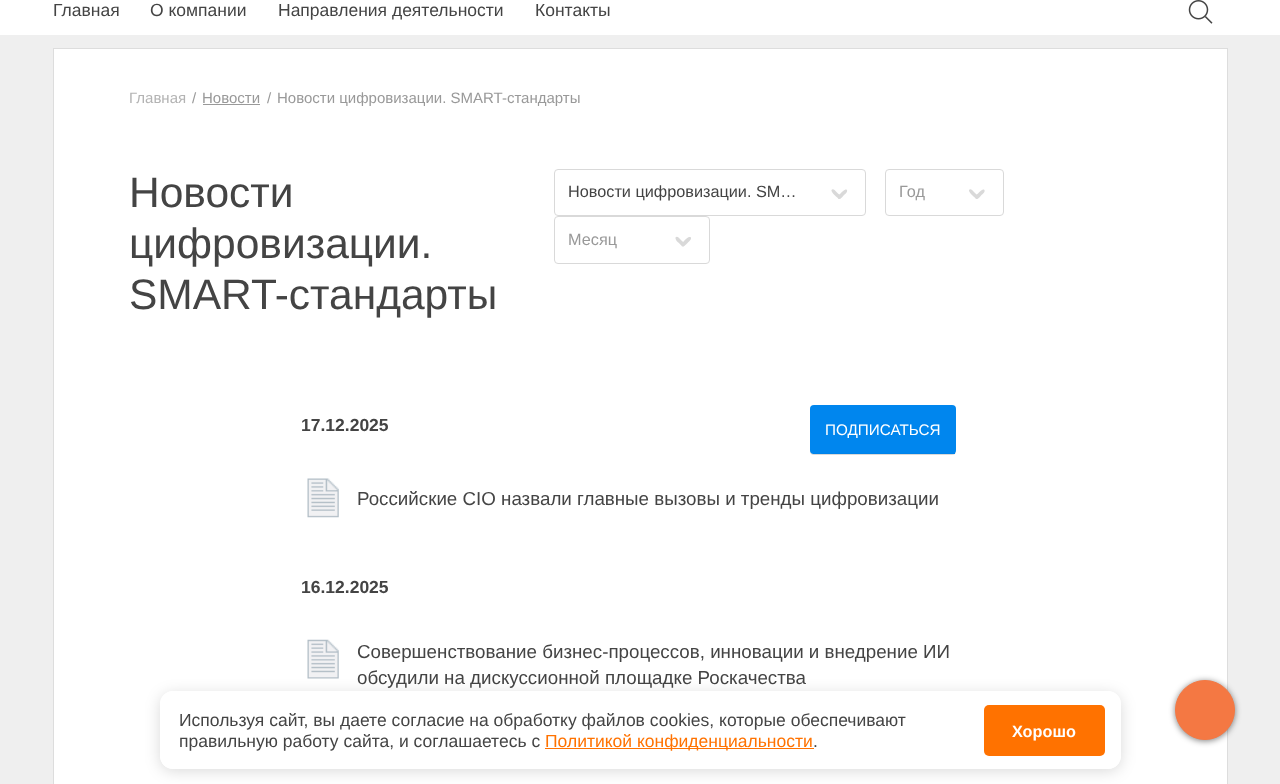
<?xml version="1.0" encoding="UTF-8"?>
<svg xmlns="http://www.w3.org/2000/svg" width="1280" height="784">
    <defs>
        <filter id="blur1" x="-50%" y="-200%" width="200%" height="500%"><feGaussianBlur stdDeviation="0.5"/></filter>
        <clipPath id="clip1"><path d="M 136 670 H 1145 V 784 H 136 Z M 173 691 H 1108 C 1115 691 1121 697 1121 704 V 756 C 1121 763 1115 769 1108 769 H 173 C 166 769 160 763 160 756 V 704 C 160 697 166 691 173 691 Z" clip-rule="evenodd"/></clipPath>
        <filter id="blur2" x="-50%" y="-200%" width="200%" height="500%"><feGaussianBlur stdDeviation="7.5"/></filter>
        <filter id="blur3" x="-50%" y="-200%" width="200%" height="500%"><feGaussianBlur stdDeviation="3"/></filter>
    </defs>
    <rect width="100%" height="100%" fill="#EFEFEF"/>
    <rect x="0" y="0" width="1280" height="35" fill="#FFFFFF"/>
    <text x="53" y="16" font-family="Liberation Sans" font-size="17.5" fill="#444444">Главная</text>
    <text x="150" y="16" font-family="Liberation Sans" font-size="17.5" fill="#444444">О компании</text>
    <text x="278" y="16" font-family="Liberation Sans" font-size="17.5" fill="#444444">Направления деятельности</text>
    <text x="535" y="16" font-family="Liberation Sans" font-size="17.5" fill="#444444">Контакты</text>
    <image x="1188" y="0" width="25" height="24" href="img_01.png"/>
    <rect x="53.5" y="48.5" width="1174" height="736" fill="#FFFFFF" stroke="#DDDDDD"/>
    <text x="129" y="103" font-family="Liberation Sans" font-size="15" fill="#B3B3B3">Главная</text>
    <text x="192" y="103" font-family="Liberation Sans" font-size="15" fill="#999999">/</text>
    <text x="202" y="103" font-family="Liberation Sans" font-size="15" fill="#999999">Новости</text>
    <rect x="203" y="104" width="57" height="1" fill="#999999"/>
    <text x="267" y="103" font-family="Liberation Sans" font-size="15" fill="#999999">/</text>
    <text x="277" y="103" font-family="Liberation Sans" font-size="15" fill="#999999">Новости цифровизации. SMART-стандарты</text>
    <text font-family="Liberation Sans" font-size="42.5" fill="#444444">
        <tspan x="129" y="207">Новости</tspan>
        <tspan x="129" y="258">цифровизации.</tspan>
        <tspan x="129" y="309">SMART-стандарты</tspan>
    </text>
    <rect x="554.5" y="169.5" width="311" height="46" rx="3.5" fill="none" stroke="#D9D9D9"/>
    <text x="568" y="197" font-family="Liberation Sans" font-size="16.25" fill="#444444">Новости цифровизации. SM…</text>
    <path d="M 836.5 192 C 838 193.5 840 195 841 197 V 198 C 839.5 200 836.5 197 835 195.5 C 834 194.5 832.5 193 831.5 191 V 190 C 833 188 835.5 191 836.5 192 Z" fill="#D9D9D9"/>
    <path d="M 840.5 193.5 C 842 192 843.5 190 845.5 189.5 H 846.5 C 848.5 191 845.5 194 844 195 C 843 196.5 841.5 198 839.5 199 H 838.5 C 836.5 197.5 839 194.5 840.5 193.5 Z" fill="#D9D9D9"/>
    <rect x="885.5" y="169.5" width="118" height="46" rx="3.5" fill="none" stroke="#D9D9D9"/>
    <text x="899" y="197" font-family="Liberation Sans" font-size="16.25" fill="#999999">Год</text>
    <path d="M 974 192 C 975.5 193.5 977.5 195 978.5 197 V 198 C 977 200 974 197 972.5 195.5 C 971.5 194.5 970 193 969 191 V 190 C 970.5 188 973 191 974 192 Z" fill="#D9D9D9"/>
    <path d="M 978 193.5 C 979.5 192 981 190 983 189.5 H 984 C 986 191 983 194 981.5 195 C 980.5 196.5 979 198 977 199 H 976 C 974 197.5 976.5 194.5 978 193.5 Z" fill="#D9D9D9"/>
    <rect x="554.5" y="216.5" width="155" height="47" rx="3.5" fill="none" stroke="#D9D9D9"/>
    <text x="568" y="245" font-family="Liberation Sans" font-size="16.25" fill="#999999">Месяц</text>
    <path d="M 680.5 239.5 C 682 241 684 242.5 684.5 244.5 V 245.5 C 683 247.5 680 244.5 679 243 C 677.5 242 676 240.5 675.5 238.5 V 237.5 C 677 235.5 679.5 238.5 680.5 239.5 Z" fill="#D9D9D9"/>
    <path d="M 684 241 C 685.5 239.5 687 237.5 689 237 H 690.5 C 692.5 238.5 689 241.5 688 242.5 C 686.5 244 685 245.5 683.5 246.5 H 682 C 680.5 245 683 242 684 241 Z" fill="#D9D9D9"/>
    <text x="301" y="431" font-family="Liberation Sans" font-size="17.5" font-weight="700" fill="#444444">17.12.2025</text>
    <rect x="810" y="406" width="146" height="49" rx="4" fill="#000000" fill-opacity="0.15" filter="url(#blur1)"/>
    <rect x="810" y="405" width="146" height="49" rx="4" fill="#0086EE"/>
    <rect x="813" y="453" width="142" height="1" fill="#0083E9"/>
    <text x="825" y="435" font-family="Liberation Sans" font-size="15.25" fill="#FFFFFF">ПОДПИСАТЬСЯ</text>
    <image x="307" y="478" width="32" height="40" href="img_02.png"/>
    <text x="357" y="505" font-family="Liberation Sans" font-size="18.75" fill="#444444">Российские CIO назвали главные вызовы и тренды цифровизации</text>
    <text x="301" y="593" font-family="Liberation Sans" font-size="17.5" font-weight="700" fill="#444444">16.12.2025</text>
    <image x="307" y="639" width="32" height="40" href="img_03.png"/>
    <text font-family="Liberation Sans" font-size="18.75" fill="#444444">
        <tspan x="357" y="658">Совершенствование бизнес-процессов, инновации и внедрение ИИ</tspan>
        <tspan x="357" y="684">обсудили на дискуссионной площадке Роскачества</tspan>
    </text>
    <g clip-path="url(#clip1)">
        <rect x="160" y="694" width="961" height="77" rx="13" fill="#000000" fill-opacity="0.15" filter="url(#blur2)"/>
    </g>
    <rect x="160" y="691" width="961" height="78" rx="13" fill="#FFFFFF" fill-opacity="0.9"/>
    <text font-family="Liberation Sans" font-size="17.5" fill="#444444">
        <tspan x="179" y="726">Используя сайт, вы даете согласие на обработку файлов сооkiеs, которые обеспечивают</tspan>
        <tspan x="179" y="747">правильную работу сайта, и соглашаетесь с</tspan>
    </text>
    <rect x="545" y="748" width="269" height="1" fill="#FF7200"/>
    <text x="545" y="747" font-family="Liberation Sans" font-size="17.5" fill="#FF7200">Политикой конфиденциальности</text>
    <text x="813" y="747" font-family="Liberation Sans" font-size="17.5" fill="#444444">.</text>
    <rect x="984" y="705" width="121" height="51" rx="5" fill="#FF7200"/>
    <text x="1012" y="737" font-family="Liberation Sans" font-size="16.25" font-weight="700" fill="#FFFFFF">Хорошо</text>
    <rect x="1175" y="681" width="60" height="60" rx="30" fill="#000000" fill-opacity="0.5" filter="url(#blur3)"/>
    <circle cx="1205" cy="710" r="29.5" fill="#F47843" stroke="#F47843"/>
</svg>
